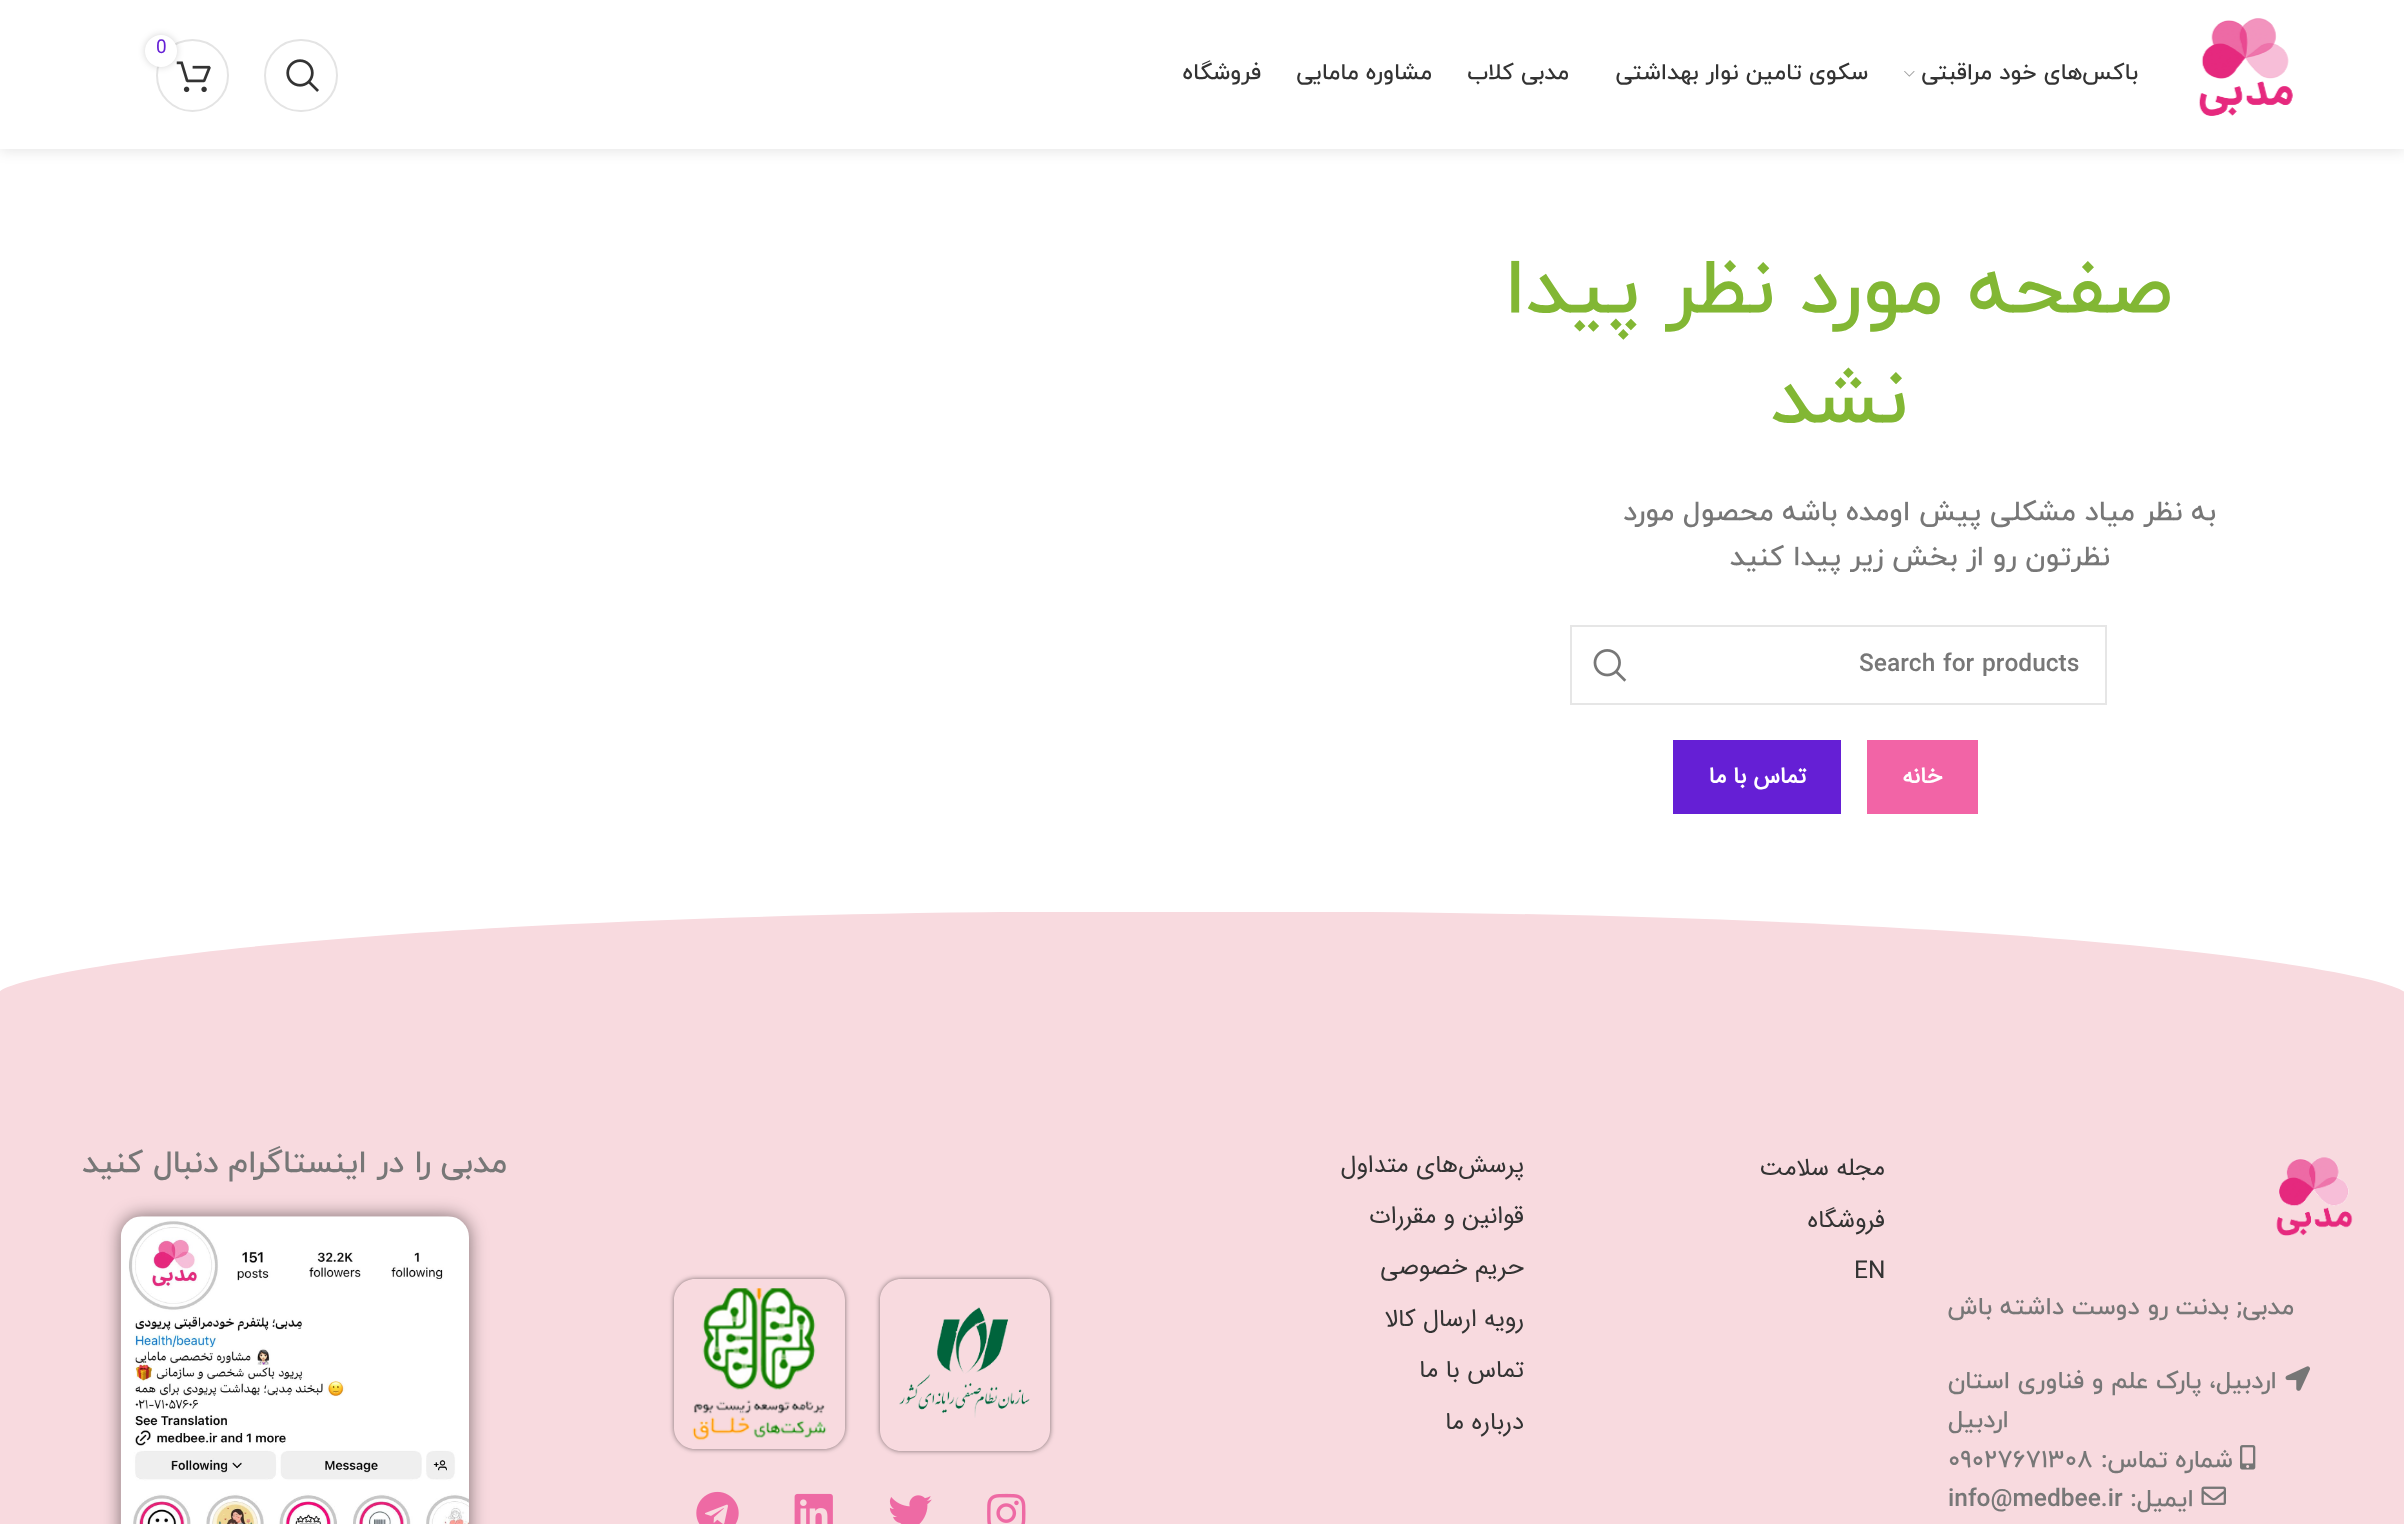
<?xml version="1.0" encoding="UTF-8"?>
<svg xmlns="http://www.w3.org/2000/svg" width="2404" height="1524">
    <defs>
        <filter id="blur1" x="-50%" y="-200%" width="200%" height="500%"><feGaussianBlur stdDeviation="7"/></filter>
        <filter id="blur2" x="-50%" y="-200%" width="200%" height="500%"><feGaussianBlur stdDeviation="3.5"/></filter>
        <clipPath id="clip1"><rect x="0" y="910" width="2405" height="86"/></clipPath>
        <filter id="blur3" x="-50%" y="-200%" width="200%" height="500%"><feGaussianBlur stdDeviation="9"/></filter>
        <clipPath id="clip2"><path d="M 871 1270 H 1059 V 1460 H 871 Z M 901 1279 H 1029 C 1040.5 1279 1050 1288.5 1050 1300 V 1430 C 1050 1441.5 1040.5 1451 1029 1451 H 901 C 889.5 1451 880 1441.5 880 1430 V 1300 C 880 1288.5 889.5 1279 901 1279 Z" clip-rule="evenodd"/></clipPath>
        <filter id="blur4" x="-50%" y="-200%" width="200%" height="500%"><feGaussianBlur stdDeviation="2.5"/></filter>
        <clipPath id="clip3"><path d="M 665 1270 H 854 V 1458 H 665 Z M 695 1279 H 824 C 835.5 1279 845 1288.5 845 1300 V 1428 C 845 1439.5 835.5 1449 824 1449 H 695 C 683.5 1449 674 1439.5 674 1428 V 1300 C 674 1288.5 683.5 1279 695 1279 Z" clip-rule="evenodd"/></clipPath>
    </defs>
    <rect width="100%" height="100%" fill="#FFFFFF"/>
    <rect x="0" y="2" width="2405" height="149" fill="#000000" fill-opacity="0.1" filter="url(#blur1)"/>
    <rect x="0" y="0" width="2404" height="149" fill="#FFFFFF"/>
    <rect x="265" y="40" width="72" height="71" rx="35.5" fill="none" stroke="#E4E4E4" stroke-width="2"/>
    <image x="286" y="59" width="33" height="33" href="img_01.png"/>
    <circle cx="192.5" cy="75.5" r="35.5" fill="none" stroke="#E4E4E4" stroke-width="2"/>
    <image x="176" y="61" width="35" height="32" href="img_02.png"/>
    <rect x="145" y="35" width="32" height="32" rx="16" fill="#000000" fill-opacity="0.17" filter="url(#blur2)"/>
    <circle cx="161" cy="51" r="16" fill="#FFFFFF"/>
    <text x="156" y="53" font-family="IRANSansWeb" font-size="19" fill="#651FD5">0</text>
    <image x="2199" y="18" width="94" height="98" href="img_03.png"/>
    <text x="2138" y="79" font-family="'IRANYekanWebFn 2'" font-size="22.75" font-weight="500" direction="rtl" fill="#333333">باکس‌های خود مراقبتی</text>
    <image x="1904" y="71" width="11" height="6" href="img_04.png"/>
    <text x="1868" y="79" font-family="'IRANYekanWebFn 2'" font-size="22.75" font-weight="500" direction="rtl" fill="#333333">سکوی تامین نوار بهداشتی</text>
    <text x="1569" y="79" font-family="'IRANYekanWebFn 2'" font-size="22.75" font-weight="500" direction="rtl" fill="#333333">مدبی کلاب</text>
    <text x="1432" y="79" font-family="'IRANYekanWebFn 2'" font-size="22.75" font-weight="500" direction="rtl" fill="#333333">مشاوره مامایی</text>
    <text x="1261" y="79" font-family="'IRANYekanWebFn 2'" font-size="22.75" font-weight="500" direction="rtl" fill="#333333">فروشگاه</text>
    <text x="2172" y="312" font-family="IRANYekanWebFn" font-size="78.75" font-weight="500" direction="rtl" fill="#82B734">صفحه مورد نظر پیدا</text>
    <text x="1907" y="422" font-family="IRANYekanWebFn" font-size="78.75" font-weight="500" direction="rtl" fill="#82B734">نشد</text>
    <text x="2216" y="520" font-family="IRANYekanWebFn" font-size="28" font-weight="500" direction="rtl" fill="#777777">به نظر میاد مشکلی پیش اومده باشه محصول مورد</text>
    <text x="2110" y="565" font-family="IRANYekanWebFn" font-size="28" font-weight="500" direction="rtl" fill="#777777">نظرتون رو از بخش زیر پیدا کنید</text>
    <rect x="1571" y="626" width="535" height="78" fill="none" stroke="#E6E6E6" stroke-width="2"/>
    <text x="1859" y="671" font-family="IRANYekanWebFn" font-size="24.5" font-weight="500" fill="#777777">Search for products</text>
    <image x="1593" y="649" width="34" height="33" href="img_05.png"/>
    <rect x="1867" y="740" width="111" height="74" fill="#F264A6"/>
    <text x="1942" y="783" font-family="IRANSansWeb" font-size="22.75" font-weight="700" direction="rtl" fill="#FFFFFF">خانه</text>
    <rect x="1673" y="740" width="168" height="74" fill="#651FD5"/>
    <text x="1806" y="783" font-family="IRANSansWeb" font-size="22.75" font-weight="700" direction="rtl" fill="#FFFFFF">تماس با ما</text>
    <rect x="0" y="912" width="2404" height="612" fill="#F8DADF"/>
    <g clip-path="url(#clip1)">
        <path d="M 1202 911 C 2101 911 2404 977 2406 994 V 908 H -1 V 993 C -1 977 304 910 1202 911 Z" fill="#FFFFFF"/>
    </g>
    <text x="1885" y="1175" font-family="IRANSansWeb" font-size="24.5" direction="rtl" fill="#333333">مجله سلامت</text>
    <text x="1885" y="1227" font-family="IRANSansWeb" font-size="24.5" direction="rtl" fill="#333333">فروشگاه</text>
    <text x="1854" y="1278" font-family="IRANSansWeb" font-size="24.5" fill="#333333">EN</text>
    <text x="1524" y="1172" font-family="IRANSansWeb" font-size="24.5" direction="rtl" fill="#333333">پرسش‌های متداول</text>
    <text x="1524" y="1223" font-family="IRANSansWeb" font-size="24.5" direction="rtl" fill="#333333">قوانین و مقررات</text>
    <text x="1524" y="1274" font-family="IRANSansWeb" font-size="24.5" direction="rtl" fill="#333333">حریم خصوصی</text>
    <text x="1524" y="1326" font-family="IRANSansWeb" font-size="24.5" direction="rtl" fill="#333333">رویه ارسال کالا</text>
    <text x="1524" y="1377" font-family="IRANSansWeb" font-size="24.5" direction="rtl" fill="#333333">تماس با ما</text>
    <text x="1524" y="1429" font-family="IRANSansWeb" font-size="24.5" direction="rtl" fill="#333333">درباره ما</text>
    <text x="507" y="1172" font-family="IRANYekanWebFn" font-size="31.5" font-weight="500" direction="rtl" fill="#777777">مدبی را در اینستاگرام دنبال کنید</text>
    <rect x="121" y="1216" width="348" height="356" rx="21" fill="#000000" fill-opacity="0.5" filter="url(#blur3)"/>
    <image x="120" y="1216" width="349" height="308" href="img_06.png"/>
    <image x="2276" y="1157" width="77" height="79" href="img_07.png"/>
    <text x="2294" y="1314" font-family="IRANYekanWebFn" font-size="24.5" font-weight="500" direction="rtl" fill="#777777">مدبی; بدنت رو دوست داشته باش</text>
    <image x="2285" y="1366" width="25" height="25" href="img_08.png"/>
    <text x="2277" y="1388" font-family="IRANYekanWebFn" font-size="24.5" font-weight="500" direction="rtl" fill="#777777">اردبیل، پارک علم و فناوری استان</text>
    <text x="2009" y="1427" font-family="IRANYekanWebFn" font-size="24.5" font-weight="500" direction="rtl" fill="#777777">اردبیل</text>
    <image x="2240" y="1445" width="16" height="25" href="img_09.png"/>
    <text x="2233" y="1467" font-family="IRANYekanWebFn" font-size="24.5" font-weight="500" direction="rtl" fill="#777777">شماره تماس:</text>
    <text x="1948" y="1467" font-family="IRANYekanWebFn" font-size="24.5" font-weight="500" fill="#777777">09027671308</text>
    <image x="2201" y="1486" width="25" height="19" href="img_10.png"/>
    <text x="2194" y="1506" font-family="IRANYekanWebFn" font-size="24.5" font-weight="500" direction="rtl" fill="#777777">ایمیل:</text>
    <text x="1948" y="1506" font-family="IRANYekanWebFn" font-size="24.5" font-weight="500" fill="#777777">info@medbee.ir</text>
    <g clip-path="url(#clip2)">
        <rect x="880" y="1279" width="170" height="172" rx="21" fill="#000000" fill-opacity="0.5" filter="url(#blur4)"/>
    </g>
    <image x="899" y="1307" width="131" height="111" href="img_11.png"/>
    <g clip-path="url(#clip3)">
        <rect x="674" y="1279" width="171" height="170" rx="21" fill="#000000" fill-opacity="0.5" filter="url(#blur4)"/>
    </g>
    <image x="692" y="1288" width="135" height="153" href="img_12.png"/>
    <image x="987" y="1493" width="39" height="31" href="img_13.png"/>
    <image x="889" y="1495" width="43" height="29" href="img_14.png"/>
    <image x="794" y="1493" width="39" height="31" href="img_15.png"/>
    <image x="696" y="1491" width="43" height="33" href="img_16.png"/>
</svg>
